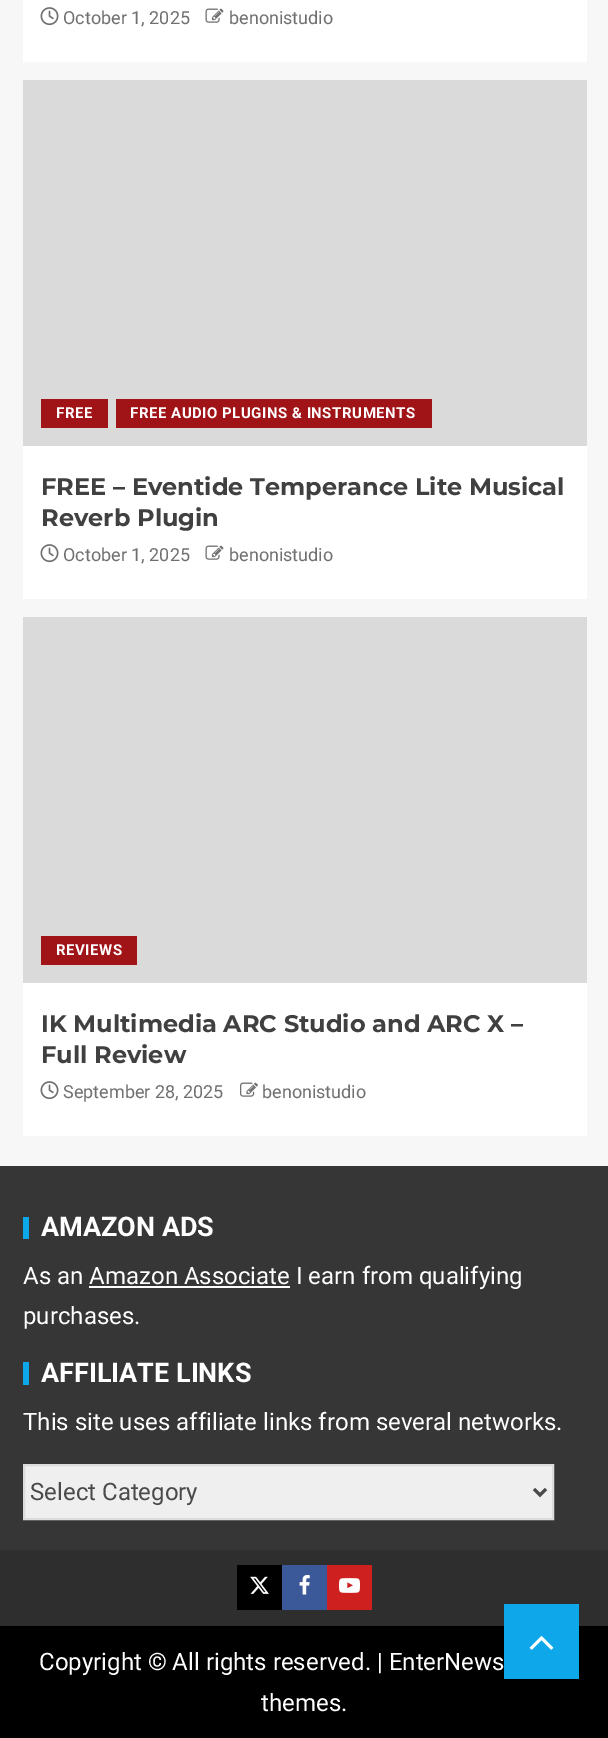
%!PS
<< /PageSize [608 1738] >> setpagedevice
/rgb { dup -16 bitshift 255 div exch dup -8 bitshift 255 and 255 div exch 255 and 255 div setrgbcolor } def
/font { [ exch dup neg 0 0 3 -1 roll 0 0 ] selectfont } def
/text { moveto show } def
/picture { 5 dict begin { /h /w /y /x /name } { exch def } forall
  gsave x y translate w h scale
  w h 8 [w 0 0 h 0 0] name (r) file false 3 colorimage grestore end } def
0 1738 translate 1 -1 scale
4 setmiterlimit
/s1 { /Roboto-Regular 18 font 16#707070 rgb } def
/s2 { /Montserrat-Bold 24 font 16#404040 rgb } def
/s3 { /Roboto-Bold 27 font 16#FFFFFF rgb } def
/s4 { /Roboto-Regular 24 font 16#FFFFFF rgb } def
/s5 { /Roboto-Regular 24 font 16#4A4A4A rgb } def
16#F7F7F7 rgb
0 0 608 1738 rectfill
16#FFFFFF rgb
23 0 564 62 rectfill
(pic1.raw) 40 7 19 19 picture
s1
(October 1, 2025) 63 24 text
(pic2.raw) 205 8 19 15 picture
(benonistudio) 229 24 text
16#DADADA rgb
23 80 564 366 rectfill
16#A01317 rgb
41 399 67 29 rectfill
/Roboto-Bold 15 font
16#FFFFFF rgb
56 418 moveto 0.5 0 (FREE) ashow
16#A01317 rgb
116 399 316 29 rectfill
16#FFFFFF rgb
130 418 moveto 0.5 0 (FREE AUDIO PLUGINS & INSTRUMENTS) ashow
23 446 564 153 rectfill
s2
(FREE – Eventide Temperance Lite Musical) 41 495 text
(Reverb Plugin) 41 526 text
(pic1.raw) 40 544 19 19 picture
s1
(October 1, 2025) 63 561 text
(pic2.raw) 205 545 19 15 picture
(benonistudio) 229 561 text
16#DADADA rgb
23 617 564 366 rectfill
16#A01317 rgb
41 936 96 29 rectfill
/Roboto-Bold 15 font
16#FFFFFF rgb
56 955 moveto 0.5 0 (REVIEWS) ashow
23 983 564 153 rectfill
s2
(IK Multimedia ARC Studio and ARC X –) 41 1032 text
(Full Review) 41 1063 text
(pic1.raw) 40 1081 19 19 picture
s1
(September 28, 2025) 63 1098 text
(pic3.raw) 240 1082 18 15 picture
(benonistudio) 262 1098 text
16#363636 rgb
0 1166 608 384 rectfill
16#0EA8EA rgb
23 1217 6 22 rectfill
s3
(AMAZON ADS) 41 1236 text
s4
(As an Amazon Associate I earn from qualifying) 23 1284 text
89 1286 201 2 rectfill
(purchases.) 23 1324 text
16#0EA8EA rgb
23 1362 6 23 rectfill
s3
(AFFILIATE LINKS) 41 1382 text
s4
(This site uses affiliate links from several networks.) 23 1430 text
16#EFEFEF rgb
24 1465 moveto 553 1465 lineto 553 1519 lineto 24 1519 lineto closepath gsave fill grestore
16#DCDCDC rgb
2 setlinewidth
stroke
16#4A4A4A rgb
3 setlinewidth
534 1489 moveto 540 1495 lineto 546 1489 lineto stroke
(Select Category) 30 1500 text
16#2E2E2E rgb
0 1550 608 76 rectfill
16#000000 rgb
237 1565 45 45 rectfill
(pic4.raw) 250 1576 19 18 picture
16#3B5999 rgb
282 1565 45 45 rectfill
(pic5.raw) 299 1575 11 20 picture
16#CD201F rgb
327 1565 45 45 rectfill
(pic6.raw) 339 1578 21 15 picture
16#000000 rgb
0 1626 608 112 rectfill
s4
(Copyright © All rights reserved. | EnterNews) 39 1670 text
(themes.) 261 1711 text
16#0EA8EA rgb
504 1604 75 75 rectfill
(pic7.raw) 529 1636 25 14 picture
showpage
